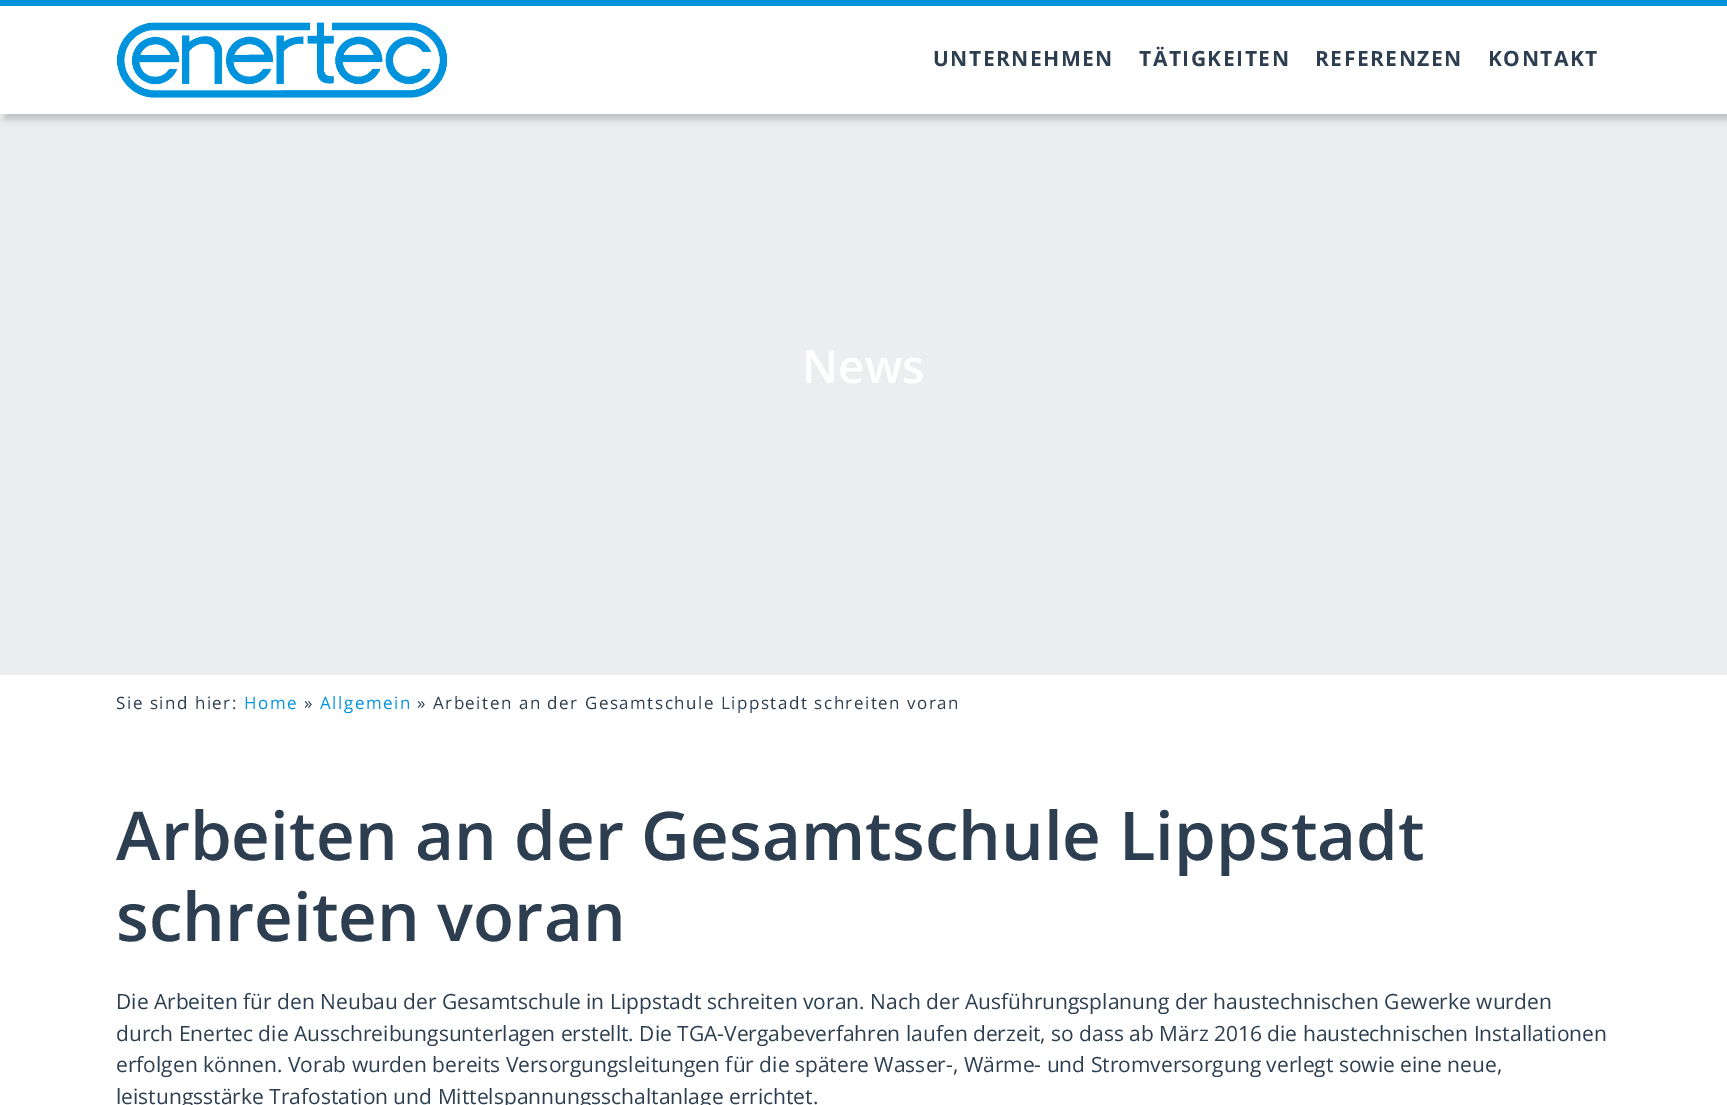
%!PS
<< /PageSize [1727 1105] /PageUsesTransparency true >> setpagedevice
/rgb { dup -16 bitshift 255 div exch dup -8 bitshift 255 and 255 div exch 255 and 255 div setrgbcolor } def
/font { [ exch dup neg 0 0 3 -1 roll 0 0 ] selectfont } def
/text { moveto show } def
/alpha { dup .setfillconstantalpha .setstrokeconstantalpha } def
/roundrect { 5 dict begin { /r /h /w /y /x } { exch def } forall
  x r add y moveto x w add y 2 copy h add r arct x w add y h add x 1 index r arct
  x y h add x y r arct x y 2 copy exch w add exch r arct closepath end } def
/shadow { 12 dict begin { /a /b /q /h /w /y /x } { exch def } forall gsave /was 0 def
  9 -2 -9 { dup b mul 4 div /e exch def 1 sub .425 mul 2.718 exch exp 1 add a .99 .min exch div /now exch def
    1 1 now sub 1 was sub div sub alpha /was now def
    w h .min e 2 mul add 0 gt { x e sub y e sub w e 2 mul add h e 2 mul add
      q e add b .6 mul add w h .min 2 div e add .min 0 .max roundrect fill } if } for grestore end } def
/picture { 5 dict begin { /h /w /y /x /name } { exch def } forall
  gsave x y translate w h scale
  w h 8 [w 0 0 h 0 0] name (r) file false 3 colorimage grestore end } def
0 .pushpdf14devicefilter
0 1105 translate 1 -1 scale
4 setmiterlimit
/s1 { /OpenSans-SemiBold 46 font 16#FFFFFF rgb } def
/s2 { /OpenSans-Regular 21 font 16#2C3E50 rgb } def
16#FFFFFF rgb
0 0 1727 1105 rectfill
16#EBEDEE rgb
0 114 1727 561 rectfill
16#000000 rgb
5 5 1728 114 0 4 0.2 shadow
16#FFFFFF rgb
0 6 1727 108 rectfill
16#0093DD rgb
0 0 1727 6 rectfill
(pic1.raw) 116 22 331 76 picture
/OpenSans-Bold 21 font
16#2C3E50 rgb
933 66 moveto 1.5 0 (UNTERNEHMEN) ashow
1139 66 moveto 1.5 0 (TÄTIGKEITEN) ashow
1315 66 moveto 1.5 0 (REFERENZEN) ashow
1488 66 moveto 1.5 0 (KONTAKT) ashow
s1
(News) 802 383 text
/OpenSans-Regular 17 font
16#2C3E50 rgb
116 709 moveto 1.5 0 (Sie sind hier:) ashow
16#0093DD rgb
244 709 moveto 1.5 0 (Home) ashow
16#2C3E50 rgb
304 709 moveto 1.5 0 (») ashow
16#0093DD rgb
320 709 moveto 1.5 0 (Allgemein) ashow
16#2C3E50 rgb
417 709 moveto 1.5 0 (» Arbeiten an der Gesamtschule Lippstadt schreiten voran) ashow
/OpenSans-SemiBold 67.25 font
116 860 moveto 0.05 0 (Arbeiten an der Gesamtschule Lippstadt) ashow
116 941 moveto 0.05 0 (schreiten voran) ashow
s2
(Die Arbeiten für den Neubau der Gesamtschule in Lippstadt schreiten voran. Nach der Ausführungsplanung der haustechnischen Gewerke wurden) 116 1009 text
(durch Enertec die Ausschreibungsunterlagen erstellt. Die TGA-Vergabeverfahren laufen derzeit, so dass ab März 2016 die haustechnischen Installationen) 116 1041 text
(erfolgen können. Vorab wurden bereits Versorgungsleitungen für die spätere Wasser-, Wärme- und Stromversorgung verlegt sowie eine neue,) 116 1072 text
(leistungsstärke Trafostation und Mittelspannungsschaltanlage errichtet.) 116 1104 text
.poppdf14devicefilter showpage
